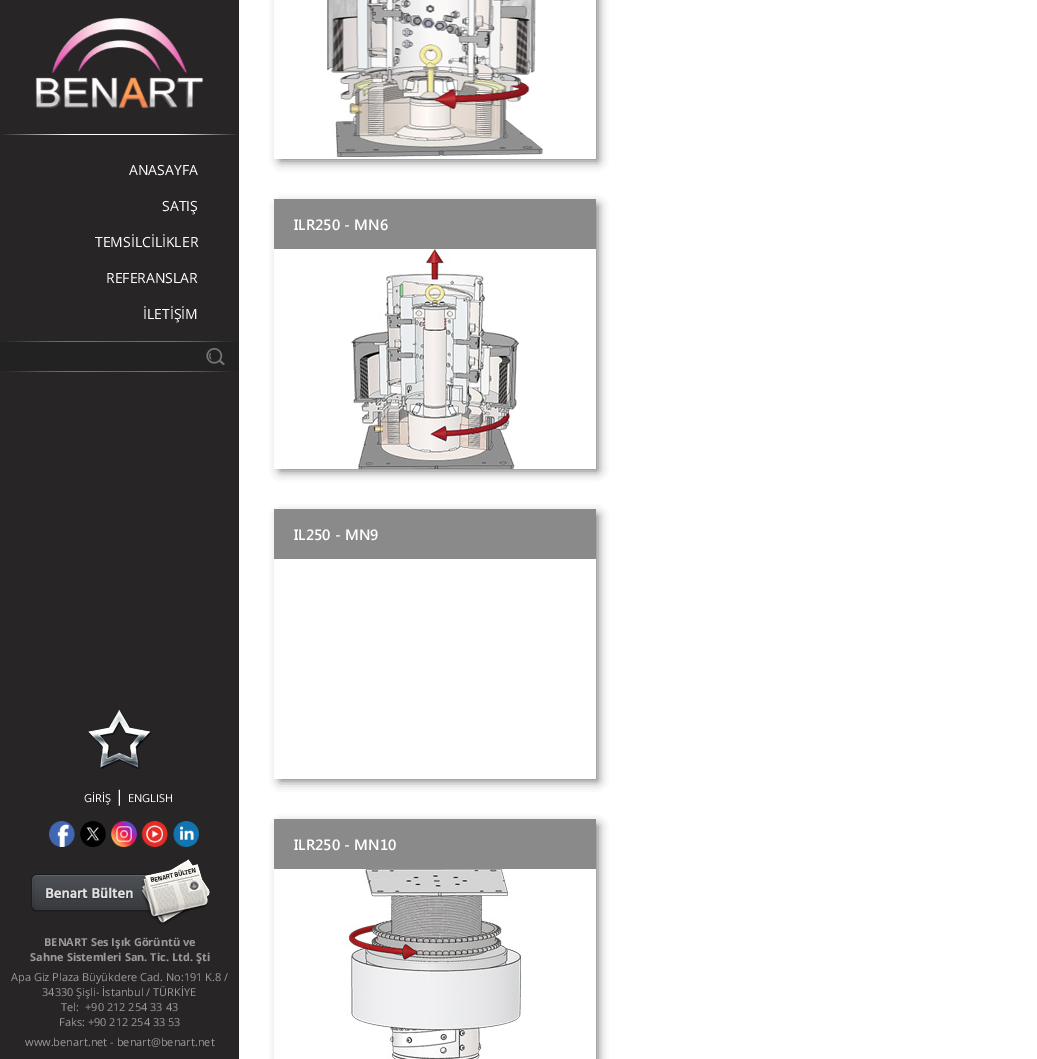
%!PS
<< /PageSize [1037 1059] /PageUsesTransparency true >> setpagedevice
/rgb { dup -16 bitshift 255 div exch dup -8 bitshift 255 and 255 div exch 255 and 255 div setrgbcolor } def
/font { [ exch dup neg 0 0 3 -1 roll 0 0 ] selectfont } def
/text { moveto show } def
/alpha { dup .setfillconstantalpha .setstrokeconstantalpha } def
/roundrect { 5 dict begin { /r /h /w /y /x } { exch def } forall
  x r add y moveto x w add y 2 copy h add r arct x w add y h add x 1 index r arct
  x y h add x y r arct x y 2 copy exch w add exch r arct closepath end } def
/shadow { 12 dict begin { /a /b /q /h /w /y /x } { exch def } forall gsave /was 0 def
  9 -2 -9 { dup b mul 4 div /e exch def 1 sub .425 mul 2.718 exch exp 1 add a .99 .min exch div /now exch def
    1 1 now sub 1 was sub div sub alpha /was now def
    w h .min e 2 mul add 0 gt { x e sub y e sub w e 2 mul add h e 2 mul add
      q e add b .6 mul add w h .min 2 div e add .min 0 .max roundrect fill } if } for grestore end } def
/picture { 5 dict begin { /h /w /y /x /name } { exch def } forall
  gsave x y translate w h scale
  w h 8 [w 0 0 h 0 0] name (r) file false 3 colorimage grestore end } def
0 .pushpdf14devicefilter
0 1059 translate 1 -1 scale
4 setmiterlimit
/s1 { /OpenSans-Regular 14 font 16#FFFFFF rgb } def
/s2 { /OpenSans-Regular 11 font 16#FFFFFF rgb } def
/s3 { /OpenSans-Regular 16 font 16#FFFFFF rgb } def
/s4 { /OpenSans-Bold 11 font 16#9A999E rgb } def
/s5 { /OpenSans-Regular 11 font 16#9A999E rgb } def
/s6 { /SegoeUI-SemiBold 15 font 16#FFFFFF rgb } def
16#FFFFFF rgb
0 0 1037 1059 rectfill
16#272525 rgb
0 0 239 1059 rectfill
(pic1.raw) 35 18 169 91 picture
gsave 0 134 moveto 239 134 lineto 239 135 lineto 0 135 lineto closepath clip newpath
<< /ShadingType 2 /ColorSpace /DeviceRGB /Coords [0 135 239 135] /Extend [true true] /Function << /FunctionType 3 /Domain [0 1] /Functions [<< /FunctionType 2 /Domain [0 1] /C0 [0.153 0.145 0.145] /C1 [1 1 1] /N 1 >> << /FunctionType 2 /Domain [0 1] /C0 [1 1 1] /C1 [1 1 1] /N 1 >> << /FunctionType 2 /Domain [0 1] /C0 [1 1 1] /C1 [0.153 0.145 0.145] /N 1 >>] /Bounds [0.29 0.74] /Encode [0 1 0 1 0 1] >> >> shfill grestore
s1
(ANASAYFA) 129 175 text
(SATIŞ) 162 211 text
(TEMSİLCİLİKLER) 95 247 text
(REFERANSLAR) 106 283 text
(İLETİŞİM) 143 319 text
(pic2.raw) 0 341 239 31 picture
(pic3.raw) 88 709 63 60 picture
s2
(GİRİŞ) 84 802 text
s3
(|) 115 802 text
s2
(ENGLISH) 128 802 text
(pic4.raw) 49 821 150 26 picture
(pic5.raw) 31 859 179 66 picture
s4
(BENART Ses Işık Görüntü ve) 44 946 text
(Sahne Sistemleri San. Tic. Ltd. Şti) 30 961 text
s5
(Apa Giz Plaza Büyükdere Cad. No:191 K.8 /) 11 981 text
(34330 Şişli- İstanbul / TÜRKİYE) 42 996 text
(Tel:) 61 1011 text
(+90 212 254 33 43) 85 1011 text
(Faks: +90 212 254 33 53) 59 1026 text
(www.benart.net - benart@benart.net) 25 1046 text
gsave
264 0 moveto 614 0 lineto 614 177 lineto 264 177 lineto closepath 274 -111 moveto 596 -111 lineto 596 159 lineto 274 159 lineto closepath eoclip newpath
16#000000 rgb
280 -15 318 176 0 5 0.55 shadow
grestore
(pic6.raw) 327 0 216 157 picture
gsave
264 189 moveto 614 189 lineto 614 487 lineto 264 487 lineto closepath 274 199 moveto 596 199 lineto 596 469 lineto 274 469 lineto closepath eoclip newpath
16#000000 rgb
280 205 318 266 0 5 0.55 shadow
grestore
(pic7.raw) 351 249 168 220 picture
16#8A8A8A rgb
274 199 322 50 rectfill
s6
(ILR250 - MN6) 294 230 text
gsave
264 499 moveto 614 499 lineto 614 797 lineto 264 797 lineto closepath 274 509 moveto 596 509 lineto 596 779 lineto 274 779 lineto closepath eoclip newpath
16#000000 rgb
280 515 318 266 0 5 0.55 shadow
grestore
16#8A8A8A rgb
274 509 322 50 rectfill
s6
(IL250 - MN9) 294 540 text
gsave
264 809 moveto 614 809 lineto 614 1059 lineto 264 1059 lineto closepath 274 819 moveto 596 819 lineto 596 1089 lineto 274 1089 lineto closepath eoclip newpath
16#000000 rgb
280 825 318 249 0 5 0.55 shadow
grestore
(pic8.raw) 346 869 176 190 picture
16#8A8A8A rgb
274 819 322 50 rectfill
s6
(ILR250 - MN10) 294 850 text
.poppdf14devicefilter showpage
